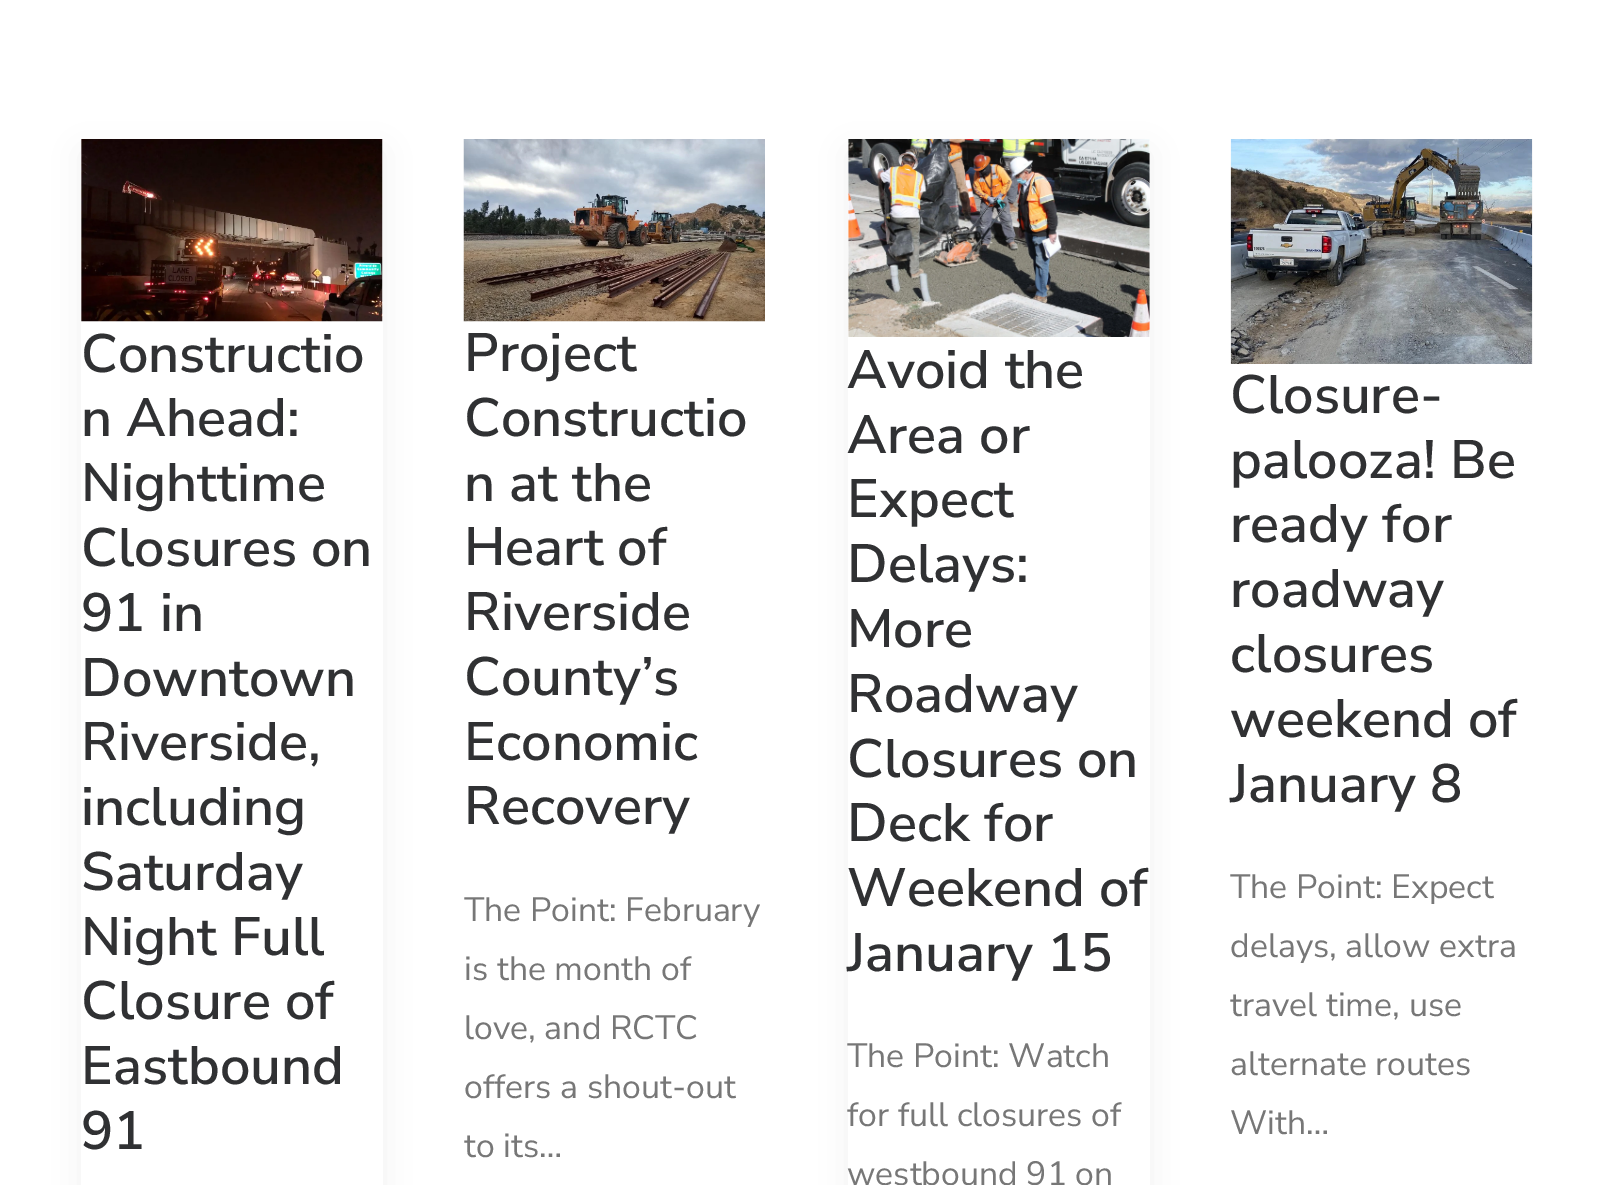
%!PS
<< /PageSize [1613 1185] /PageUsesTransparency true >> setpagedevice
/rgb { dup -16 bitshift 255 div exch dup -8 bitshift 255 and 255 div exch 255 and 255 div setrgbcolor } def
/font { [ exch dup neg 0 0 3 -1 roll 0 0 ] selectfont } def
/text { moveto show } def
/alpha { dup .setfillconstantalpha .setstrokeconstantalpha } def
/roundrect { 5 dict begin { /r /h /w /y /x } { exch def } forall
  x r add y moveto x w add y 2 copy h add r arct x w add y h add x 1 index r arct
  x y h add x y r arct x y 2 copy exch w add exch r arct closepath end } def
/shadow { 12 dict begin { /a /b /q /h /w /y /x } { exch def } forall gsave /was 0 def
  9 -2 -9 { dup b mul 4 div /e exch def 1 sub .425 mul 2.718 exch exp 1 add a .99 .min exch div /now exch def
    1 1 now sub 1 was sub div sub alpha /was now def
    w h .min e 2 mul add 0 gt { x e sub y e sub w e 2 mul add h e 2 mul add
      q e add b .6 mul add w h .min 2 div e add .min 0 .max roundrect fill } if } for grestore end } def
/picture { 5 dict begin { /h /w /y /x /name } { exch def } forall
  gsave x y translate w h scale
  w h 8 [w 0 0 h 0 0] name (r) file false 3 colorimage grestore end } def
0 .pushpdf14devicefilter
0 1185 translate 1 -1 scale
4 setmiterlimit
/s1 { /NunitoSans-SemiBold 54 font 16#303133 rgb } def
/s2 { /NunitoSans-Regular 33.75 font 16#777777 rgb } def
16#FFFFFF rgb
0 0 1613 1185 rectfill
16#000000 rgb
81 151 302 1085 0 17 0.05 shadow
16#FFFFFF rgb
81 140 302 1045 rectfill
(pic1.raw) 81 139 302 183 picture
s1
(Constructio) 81 372 text
(n Ahead:) 81 436 text
(Nighttime) 81 501 text
(Closures on) 81 566 text
(91 in) 81 631 text
(Downtown) 81 696 text
(Riverside,) 81 760 text
(including) 81 825 text
(Saturday) 81 890 text
(Night Full) 81 955 text
(Closure of) 81 1019 text
(Eastbound) 81 1084 text
(91) 81 1149 text
(pic2.raw) 463 139 302 183 picture
(Project) 464 371 text
(Constructio) 464 436 text
(n at the) 464 501 text
(Heart of) 464 565 text
(Riverside) 464 630 text
(County’s) 464 695 text
(Economic) 464 760 text
(Recovery) 464 824 text
s2
(The Point: February) 464 921 text
(is the month of) 464 980 text
(love, and RCTC) 464 1039 text
(offers a shout-out) 464 1098 text
(to its…) 464 1157 text
16#000000 rgb
848 151 302 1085 0 17 0.05 shadow
16#FFFFFF rgb
848 140 302 1045 rectfill
(pic3.raw) 848 139 302 198 picture
s1
(Avoid the) 847 388 text
(Area or) 847 453 text
(Expect) 847 517 text
(Delays:) 847 582 text
(More) 847 647 text
(Roadway) 847 712 text
(Closures on) 847 777 text
(Deck for) 847 841 text
(Weekend of) 847 906 text
(January 15) 847 971 text
s2
(The Point: Watch) 847 1067 text
(for full closures of) 847 1126 text
(westbound 91 on) 847 1185 text
(pic4.raw) 1230 139 303 225 picture
s1
(Closure-) 1230 413 text
(palooza! Be) 1230 478 text
(ready for) 1230 542 text
(roadway) 1230 607 text
(closures) 1230 672 text
(weekend of) 1230 737 text
(January 8) 1230 802 text
s2
(The Point: Expect) 1230 898 text
(delays, allow extra) 1230 957 text
(travel time, use) 1230 1016 text
(alternate routes) 1230 1075 text
(With…) 1230 1134 text
.poppdf14devicefilter showpage
